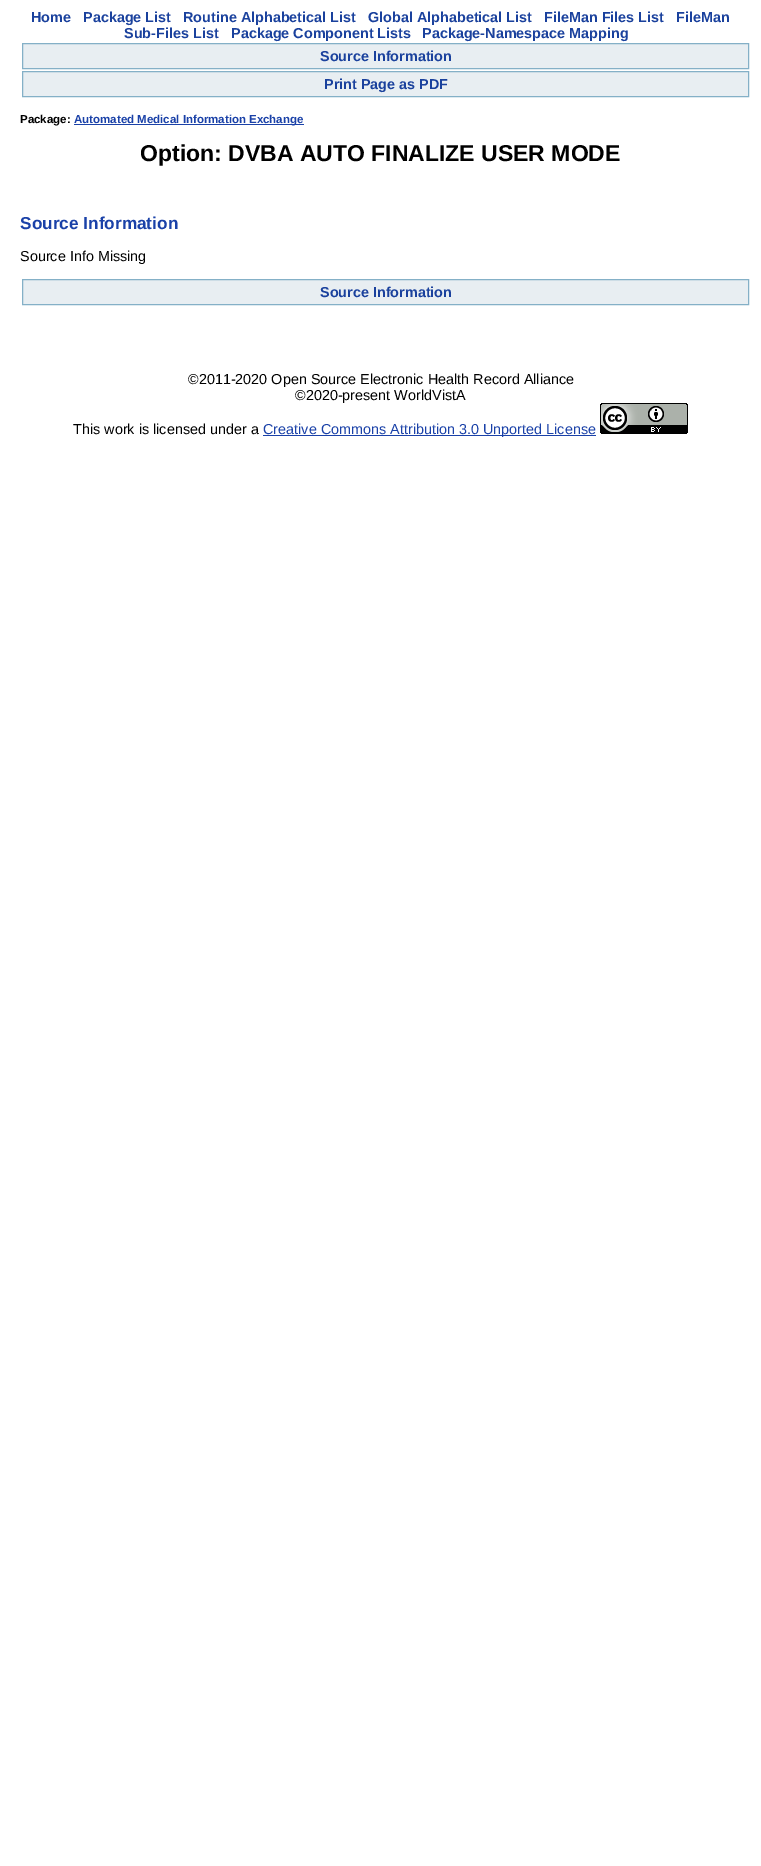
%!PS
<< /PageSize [761 1866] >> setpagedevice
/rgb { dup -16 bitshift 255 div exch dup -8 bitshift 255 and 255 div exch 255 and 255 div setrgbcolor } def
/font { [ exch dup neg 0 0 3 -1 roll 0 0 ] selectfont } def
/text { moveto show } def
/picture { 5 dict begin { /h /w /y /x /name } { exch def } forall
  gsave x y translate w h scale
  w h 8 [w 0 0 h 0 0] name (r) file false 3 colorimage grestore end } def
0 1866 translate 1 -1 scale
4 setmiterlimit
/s1 { /LiberationSans-Bold 14.4 font 16#1A419D rgb } def
/s2 { /LiberationSans-Bold 11.5 font 16#000000 rgb } def
/s3 { /LiberationSans-Bold 11.5 font 16#1A41A8 rgb } def
/s4 { /LiberationSans-Bold 23 font 16#000000 rgb } def
/s5 { /LiberationSans-Bold 17.25 font 16#1A41A8 rgb } def
/s6 { /LiberationSans-Regular 14.4 font 16#000000 rgb } def
/s7 { /LiberationSans-Regular 14.4 font 16#1A41A8 rgb } def
16#FFFFFF rgb
0 0 761 1866 rectfill
s1
(Home) 31 22 text
(Package List) 83 22 text
(Routine Alphabetical List) 183 22 text
(Global Alphabetical List) 368 22 text
(FileMan Files List) 544 22 text
(FileMan) 676 22 text
(Sub-Files List) 124 38 text
(Package Component Lists) 231 38 text
(Package-Namespace Mapping) 422 38 text
16#E8EEF2 rgb
22.5 43.5 moveto 748.5 43.5 lineto 748.5 68.5 lineto 22.5 68.5 lineto closepath gsave fill grestore
16#84B0C7 rgb
stroke
s1
(Source Information) 320 61 text
16#E8EEF2 rgb
22.5 71.5 moveto 748.5 71.5 lineto 748.5 96.5 lineto 22.5 96.5 lineto closepath gsave fill grestore
16#84B0C7 rgb
stroke
s1
(Print Page as PDF) 324 89 text
s2
(Package:) 20 123 text
16#1A41A8 rgb
74 124 230 1 rectfill
(Automated Medical Information Exchange) 74 123 text
s4
(Option: DVBA AUTO FINALIZE USER MODE) 140 161 text
s5
(Source Information) 20 229 text
s6
(Source Info Missing) 20 261 text
16#E8EEF2 rgb
22.5 279.5 moveto 748.5 279.5 lineto 748.5 304.5 lineto 22.5 304.5 lineto closepath gsave fill grestore
16#84B0C7 rgb
stroke
s1
(Source Information) 320 297 text
s6
(©2011-2020 Open Source Electronic Health Record Alliance) 188 384 text
(©2020-present WorldVistA) 295 400 text
(This work is licensed under a) 73 434 text
16#1A41A8 rgb
263 435 333 1 rectfill
(Creative Commons Attribution 3.0 Unported License) 263 434 text
(pic1.raw) 600 403 88 31 picture
showpage
